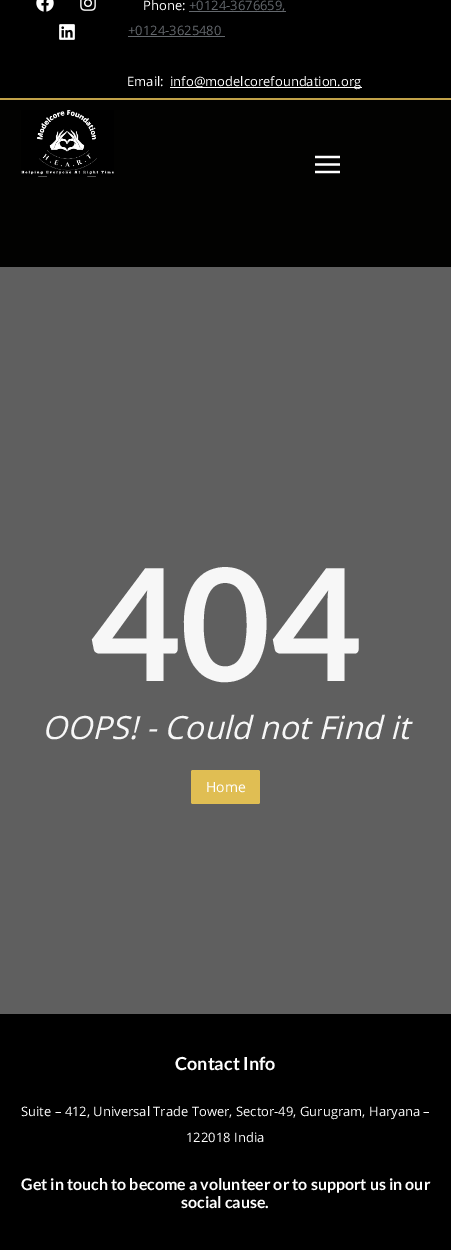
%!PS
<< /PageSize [451 1250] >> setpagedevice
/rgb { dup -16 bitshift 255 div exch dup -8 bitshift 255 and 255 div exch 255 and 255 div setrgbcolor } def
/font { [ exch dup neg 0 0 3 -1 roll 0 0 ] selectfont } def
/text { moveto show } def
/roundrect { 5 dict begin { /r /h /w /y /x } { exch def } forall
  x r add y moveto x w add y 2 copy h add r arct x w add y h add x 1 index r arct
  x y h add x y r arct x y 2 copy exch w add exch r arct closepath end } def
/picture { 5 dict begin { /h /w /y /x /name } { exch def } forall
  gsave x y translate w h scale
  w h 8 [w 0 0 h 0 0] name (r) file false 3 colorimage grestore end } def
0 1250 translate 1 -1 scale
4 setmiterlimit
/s1 { /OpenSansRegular-Regular 13 font 16#FFFFFF rgb } def
/s2 { /OpenSansRegular-Regular 13 font 16#64686D rgb } def
/s3 { /Lato-Bold 156 font 16#F7F7F7 rgb } def
/s4 { /OpenSansRegular-Italic 32 font 16#F7F7F7 rgb } def
/s5 { /OpenSansRegular-Regular 14 font 16#FFFFFF rgb } def
/s6 { /Lato-Bold 18 font 16#FFFFFF rgb } def
/s7 { /Lato-Bold 16 font 16#FFFFFF rgb } def
16#5F5F5F rgb
0 0 451 1250 rectfill
16#000000 rgb
0 0 451 98 rectfill
16#C1A249 rgb
0 98 451 2 rectfill
(pic1.raw) 36 0 18 12 picture
(pic2.raw) 80 0 16 11 picture
(pic3.raw) 59 24 16 16 picture
s1
(Phone:) 143 10 text
16#64686D rgb
189 11 97 1 rectfill
(+0124-3676659,) 189 10 text
(+0124-3625480) 128 35 text
128 36 97 1 rectfill
s1
(Email:) 127 86 text
170 87 192 1 rectfill
(info@modelcorefoundation.org) 170 86 text
16#020201 rgb
0 100 451 167 rectfill
(pic4.raw) 21 110 93 67 picture
(pic5.raw) 315 155 25 19 picture
s3
(404) 90 681 text
s4
(OOPS! - Could not Find it) 42 739 text
16#E0BE53 rgb
191 770 69 34 2 roundrect fill
s5
(Home) 206 792 text
16#000000 rgb
0 1014 451 236 rectfill
s6
(Contact Info) 175 1070 text
s1
(Suite – 412, Universal Trade Tower, Sector-49, Gurugram, Haryana –) 21 1116 text
(122018 India) 186 1142 text
s7
(Get in touch to become a volunteer or to support us in our) 21 1190 text
(social cause.) 181 1208 text
showpage
